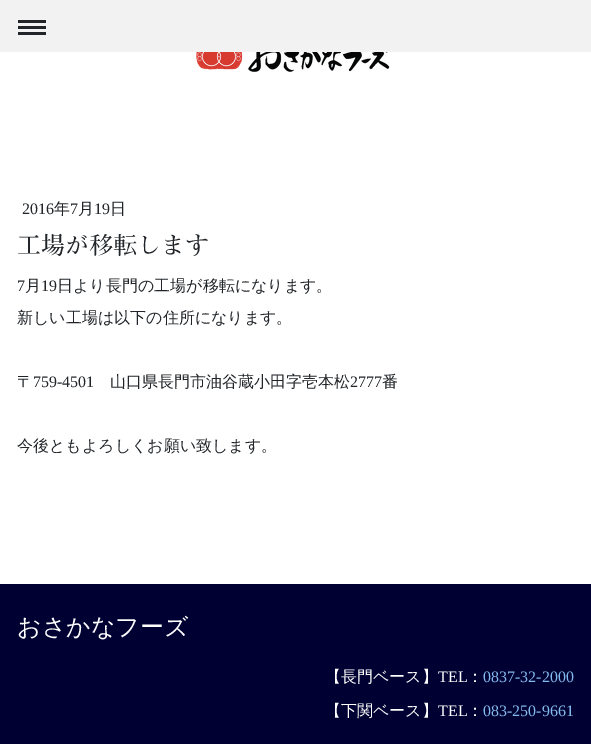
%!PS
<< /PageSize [591 744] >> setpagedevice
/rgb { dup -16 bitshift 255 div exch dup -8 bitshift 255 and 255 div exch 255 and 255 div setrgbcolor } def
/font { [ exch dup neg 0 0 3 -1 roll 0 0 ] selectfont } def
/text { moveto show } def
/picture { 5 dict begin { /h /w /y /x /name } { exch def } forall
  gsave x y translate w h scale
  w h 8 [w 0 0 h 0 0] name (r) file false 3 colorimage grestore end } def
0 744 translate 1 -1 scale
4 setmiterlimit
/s1 { /LiberationSerif-Regular 16 font 16#212529 rgb } def
/s2 { /WenQuanYiZenHei-Medium 16 font 16#212529 rgb } def
/s3 { /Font-Regular 24 font 16#212529 rgb } def
/s4 { /WenQuanYiZenHei-Medium 24 font 16#FFFFFF rgb } def
/s5 { /WenQuanYiZenHei-Medium 16 font 16#FFFFFF rgb } def
/s6 { /LiberationSerif-Regular 16 font 16#FFFFFF rgb } def
/s7 { /LiberationSerif-Regular 16 font 16#83B9EC rgb } def
16#000132 rgb
0 0 591 744 rectfill
16#F2F2F2 rgb
0 0 591 52 rectfill
16#212529 rgb
18 26 28 3 rectfill
18 20 28 3 rectfill
18 32 28 3 rectfill
16#FFFFFF rgb
0 52 591 532 rectfill
(pic1.raw) 196 52 194 20 picture
s1
(2016) 22 214 text
s2
(年) 54 214 text
s1
(7) 70 214 text
s2
(月) 78 214 text
s1
(19) 94 214 text
s2
(日) 110 214 text
s3
(工場が移転します) 17 254 text
s1
(7) 17 291 text
s2
(月) 25 291 text
s1
(19) 41 291 text
s2
(日より長門の工場が移転になります。) 57 291 text
(新しい工場は以下の住所になります。) 17 323 text
(〒) 17 387 text
s1
(759-4501) 33 387 text
s2
(山口県長門市油谷蔵小田字壱本松) 110 387 text
s1
(2777) 350 387 text
s2
(番) 382 387 text
(今後ともよろしくお願い致します。) 17 451 text
s4
(おさかなフーズ) 17 635 text
s5
(【長門ベース】) 325 682 text
s6
(TEL) 438 682 text
s5
(：) 467 682 text
s7
(0837-32-2000) 483 682 text
s5
(【下関ベース】) 325 716 text
s6
(TEL) 438 716 text
s5
(：) 467 716 text
s7
(083-250-9661) 483 716 text
showpage
